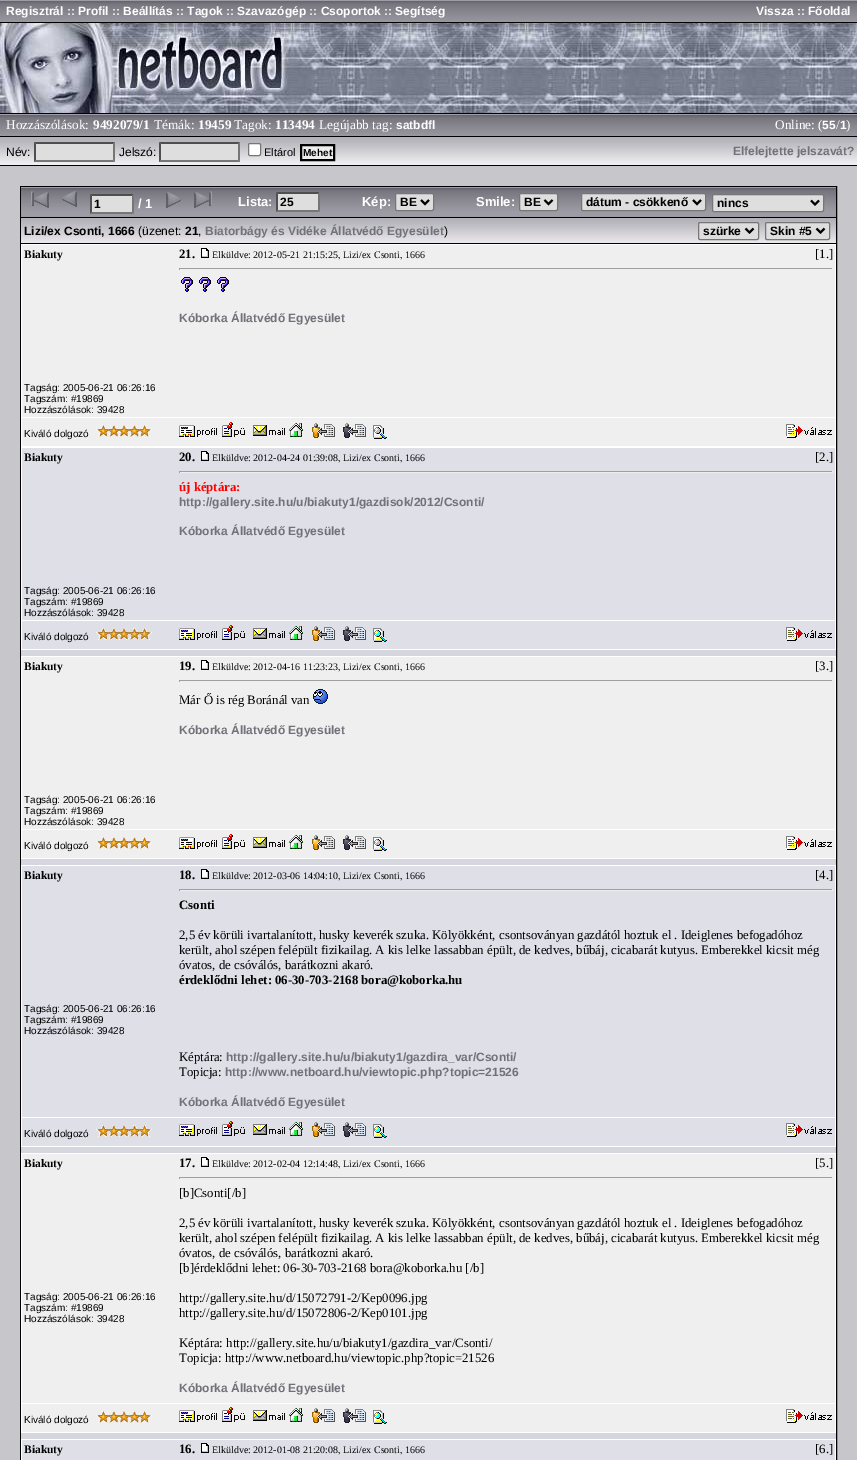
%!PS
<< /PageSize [857 1460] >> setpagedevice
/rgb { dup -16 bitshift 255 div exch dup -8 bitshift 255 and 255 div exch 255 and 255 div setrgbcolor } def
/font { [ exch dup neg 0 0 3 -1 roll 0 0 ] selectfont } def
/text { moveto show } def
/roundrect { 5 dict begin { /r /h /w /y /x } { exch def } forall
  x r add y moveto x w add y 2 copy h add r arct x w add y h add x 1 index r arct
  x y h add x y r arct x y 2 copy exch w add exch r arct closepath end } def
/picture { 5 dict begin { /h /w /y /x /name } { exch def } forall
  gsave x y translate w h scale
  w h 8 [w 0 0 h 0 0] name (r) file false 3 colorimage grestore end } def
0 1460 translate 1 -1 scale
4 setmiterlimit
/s1 { /LiberationSans-Bold 12 font 16#FFFFFF rgb } def
/s2 { /LiberationSerif-Regular 13.25 font 16#FFFFFF rgb } def
/s3 { /LiberationSerif-Bold 13.25 font 16#FFFFFF rgb } def
/s4 { /LiberationSans-Regular 12 font 16#000000 rgb } def
/s5 { /LiberationSans-Regular 11 font 16#000000 rgb } def
/s6 { /LiberationSans-Bold 10 font 16#000000 rgb } def
/s7 { /LiberationSans-Bold 12 font 16#717279 rgb } def
/s8 { /LiberationSans-Bold 12 font 16#000000 rgb } def
/s9 { /LiberationSans-Bold 13 font 16#FFFFFF rgb } def
/s10 { /LiberationSerif-Bold 11.5 font 16#000000 rgb } def
/s11 { /LiberationSans-Regular 10 font 16#000000 rgb } def
/s12 { /LiberationSerif-Bold 12.8 font 16#000000 rgb } def
/s13 { /LiberationSerif-Regular 10 font 16#000000 rgb } def
/s14 { /LiberationSerif-Regular 12.8 font 16#000000 rgb } def
/s15 { /LiberationSerif-Bold 12.8 font 16#FF0000 rgb } def
16#C7C6CA rgb
0 0 857 1460 rectfill
(pic1.raw) 0 0 857 22 picture
s1
(Regisztrál :: Profil :: Beállítás :: Tagok :: Szavazógép :: Csoportok :: Segítség) 6 15 text
(Vissza :: Főoldal) 756 15 text
(pic2.raw) 289 23 568 90 picture
16#000000 rgb
0 22 857 1 rectfill
0 113 857 1 rectfill
(pic3.raw) 0 23 289 90 picture
(pic1.raw) 0 114 857 22 picture
s2
(Hozzászólások:) 6 129 text
s3
(9492079/1) 93 129 text
s2
(Témák:) 154 129 text
s3
(19459) 198 129 text
s2
(Tagok:) 234 129 text
s3
(113494) 275 129 text
s2
(Legújabb tag:) 319 129 text
s1
(satbdfl) 396 129 text
s2
(Online: \() 775 129 text
s1
(55) 822 129 text
s2
(/) 836 129 text
s1
(1) 840 129 text
s2
(\)) 846 129 text
(pic4.raw) 0 137 857 28 picture
16#000000 rgb
0 136 857 1 rectfill
0 165 857 1 rectfill
s4
(Név:) 6 156 text
16#DEDEDE rgb
34 142 81 20 rectfill
16#4F4F4F rgb
34 142 moveto 115 142 lineto 113 144 lineto 36 144 lineto closepath fill
16#767676 rgb
115 142 moveto 115 162 lineto 113 160 lineto 113 144 lineto closepath fill
115 162 moveto 34 162 lineto 36 160 lineto 113 160 lineto closepath fill
16#4F4F4F rgb
34 162 moveto 34 142 lineto 36 144 lineto 36 160 lineto closepath fill
s4
(Jelszó:) 119 156 text
16#DEDEDE rgb
159 142 81 20 rectfill
16#4F4F4F rgb
159 142 moveto 240 142 lineto 238 144 lineto 161 144 lineto closepath fill
16#767676 rgb
240 142 moveto 240 162 lineto 238 160 lineto 238 144 lineto closepath fill
240 162 moveto 159 162 lineto 161 160 lineto 238 160 lineto closepath fill
16#4F4F4F rgb
159 162 moveto 159 142 lineto 161 144 lineto 161 160 lineto closepath fill
16#FFFFFF rgb
248.5 143.5 12 12 1.5 roundrect gsave fill grestore
16#767676 rgb
stroke
s5
(Eltárol) 264 156 text
16#EEEEEE rgb
301 145 moveto 334 145 lineto 334 160 lineto 301 160 lineto closepath gsave fill grestore
16#000000 rgb
2 setlinewidth
stroke
s6
(Mehet) 303 156 text
s7
(Elfelejtette jelszavát?) 733 155 text
16#000000 rgb
1 setlinewidth
20.5 186.5 816 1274 rectstroke
(pic5.raw) 21 187 815 30 picture
(pic6.raw) 31 191 18 17 picture
(pic7.raw) 61 191 16 16 picture
16#DEDEDE rgb
90 194 44 20 rectfill
16#4F4F4F rgb
90 194 moveto 134 194 lineto 132 196 lineto 92 196 lineto closepath fill
16#767676 rgb
134 194 moveto 134 214 lineto 132 212 lineto 132 196 lineto closepath fill
134 214 moveto 90 214 lineto 92 212 lineto 132 212 lineto closepath fill
16#4F4F4F rgb
90 214 moveto 90 194 lineto 92 196 lineto 92 212 lineto closepath fill
s8
(1) 94 208 text
s9
(/ 1) 138 208 text
(pic8.raw) 166 192 16 16 picture
(pic9.raw) 194 191 18 17 picture
(Lista:) 238 206 text
16#DEDEDE rgb
276 192 44 20 rectfill
16#4F4F4F rgb
276 192 moveto 320 192 lineto 318 194 lineto 278 194 lineto closepath fill
16#767676 rgb
320 192 moveto 320 212 lineto 318 210 lineto 318 194 lineto closepath fill
320 212 moveto 276 212 lineto 278 210 lineto 318 210 lineto closepath fill
16#4F4F4F rgb
276 212 moveto 276 192 lineto 278 194 lineto 278 210 lineto closepath fill
s8
(25) 280 206 text
s9
(Kép:) 362 206 text
16#DEDEDE rgb
395.5 193.5 38 17 1.5 roundrect gsave fill grestore
16#767676 rgb
stroke
16#000000 rgb
2 setlinewidth
421 200 moveto 425 204 lineto 429 200 lineto stroke
s8
(BE) 400 206 text
s9
(Smile:) 476 206 text
16#DEDEDE rgb
519.5 193.5 38 17 1.5 roundrect gsave fill grestore
16#767676 rgb
1 setlinewidth
stroke
16#000000 rgb
2 setlinewidth
544.5 200 moveto 548.5 204 lineto 552.5 200 lineto stroke
s8
(BE) 524 206 text
16#DEDEDE rgb
581.5 193.5 124 17 1.5 roundrect gsave fill grestore
16#767676 rgb
1 setlinewidth
stroke
16#000000 rgb
2 setlinewidth
693 200 moveto 697 204 lineto 701 200 lineto stroke
(dátum - csökkenő) 586 206 text
16#DEDEDE rgb
712.5 194.5 111 17 1.5 roundrect gsave fill grestore
16#767676 rgb
1 setlinewidth
stroke
16#000000 rgb
2 setlinewidth
811 200.5 moveto 815 204.5 lineto 819 200.5 lineto stroke
(nincs) 717 207 text
(pic10.raw) 21 218 815 25 picture
21 217 815 1 rectfill
21 243 815 1 rectfill
(Lizi/ex Csonti, 1666) 24 235 text
s4
(\(üzenet:) 138 235 text
s8
(21) 185 235 text
s4
(,) 198 235 text
s7
(Biatorbágy és Vidéke Állatvédő Egyesület) 205 235 text
s4
(\)) 444 235 text
16#DEDEDE rgb
698.5 222.5 60 17 1.5 roundrect gsave fill grestore
16#767676 rgb
1 setlinewidth
stroke
16#000000 rgb
2 setlinewidth
745.5 228.5 moveto 749.5 232.5 lineto 753.5 228.5 lineto stroke
s8
(szürke) 703 235 text
16#DEDEDE rgb
765.5 222.5 64 17 1.5 roundrect gsave fill grestore
16#767676 rgb
1 setlinewidth
stroke
16#000000 rgb
2 setlinewidth
816.5 228.5 moveto 820.5 232.5 lineto 824.5 228.5 lineto stroke
(Skin #5) 770 235 text
16#FFFFFF rgb
21 244 815 406 rectfill
16#EFEFEF rgb
22 245 813 172 rectfill
s10
(Biakuty) 24 258 text
s11
(Tagság: 2005-06-21 06:26:16) 24 391 text
(Tagszám: #19869) 24 402 text
(Hozzászólások: 39428) 24 413 text
s12
(21.) 179 258 text
(pic11.raw) 201 248 8 10 picture
s13
(Elküldve: 2012-05-21 21:15:25, Lizi/ex Csonti, 1666) 212 258 text
s14
([1.]) 815 258 text
16#9F9F9F rgb
179 268 654 1 rectfill
16#EEEEEE rgb
832 268 1 2 rectfill
16#9F9F9F rgb
179 268 1 2 rectfill
(pic12.raw) 181 277 12 15 picture
(pic12.raw) 199 277 12 15 picture
(pic12.raw) 217 277 12 15 picture
s7
(Kóborka Állatvédő Egyesület) 179 322 text
16#EFEFEF rgb
22 418 813 28 rectfill
s11
(Kiváló dolgozó) 24 437 text
(pic13.raw) 96 425 56 12 picture
(pic14.raw) 179 425 38 12 picture
(pic15.raw) 222 422 23 15 picture
(pic16.raw) 253 425 32 11 picture
(pic17.raw) 289 423 14 14 picture
(pic18.raw) 312 423 23 15 picture
(pic19.raw) 343 423 23 15 picture
(pic20.raw) 373 425 14 14 picture
(pic21.raw) 786 424 46 14 picture
16#DEDFE7 rgb
22 448 813 172 rectfill
s10
(Biakuty) 24 461 text
s11
(Tagság: 2005-06-21 06:26:16) 24 594 text
(Tagszám: #19869) 24 605 text
(Hozzászólások: 39428) 24 616 text
s12
(20.) 179 461 text
(pic22.raw) 201 451 8 10 picture
s13
(Elküldve: 2012-04-24 01:39:08, Lizi/ex Csonti, 1666) 212 461 text
s14
([2.]) 815 461 text
16#9F9F9F rgb
179 471 654 1 rectfill
16#EEEEEE rgb
832 471 1 2 rectfill
179 472 654 1 rectfill
16#9F9F9F rgb
179 471 1 2 rectfill
s15
(új képtára:) 179 491 text
s7
(http://gallery.site.hu/u/biakuty1/gazdisok/2012/Csonti/) 179 506 text
(Kóborka Állatvédő Egyesület) 179 535 text
16#DEDFE7 rgb
22 621 813 28 rectfill
s11
(Kiváló dolgozó) 24 640 text
(pic23.raw) 96 628 56 12 picture
(pic24.raw) 179 628 38 12 picture
(pic25.raw) 222 625 23 15 picture
(pic26.raw) 253 628 32 11 picture
(pic27.raw) 289 626 14 14 picture
(pic28.raw) 312 626 23 15 picture
(pic29.raw) 343 626 23 15 picture
(pic30.raw) 373 628 14 14 picture
(pic31.raw) 786 627 46 14 picture
16#D6D7DE rgb
21 650 815 6 rectfill
16#FFFFFF rgb
21 656 815 203 rectfill
16#EFEFEF rgb
22 657 813 172 rectfill
s10
(Biakuty) 24 670 text
s11
(Tagság: 2005-06-21 06:26:16) 24 803 text
(Tagszám: #19869) 24 814 text
(Hozzászólások: 39428) 24 825 text
s12
(19.) 179 670 text
(pic11.raw) 201 660 8 10 picture
s13
(Elküldve: 2012-04-16 11:23:23, Lizi/ex Csonti, 1666) 212 670 text
s14
([3.]) 815 670 text
16#9F9F9F rgb
179 680 654 1 rectfill
16#EEEEEE rgb
832 680 1 2 rectfill
16#9F9F9F rgb
179 680 1 2 rectfill
s14
(Már Ő is rég Boránál van) 179 704 text
(pic32.raw) 313 689 15 15 picture
s7
(Kóborka Állatvédő Egyesület) 179 734 text
16#EFEFEF rgb
22 830 813 28 rectfill
s11
(Kiváló dolgozó) 24 849 text
(pic13.raw) 96 837 56 12 picture
(pic14.raw) 179 837 38 12 picture
(pic15.raw) 222 834 23 15 picture
(pic16.raw) 253 837 32 11 picture
(pic17.raw) 289 835 14 14 picture
(pic18.raw) 312 835 23 15 picture
(pic19.raw) 343 835 23 15 picture
(pic20.raw) 373 837 14 14 picture
(pic21.raw) 786 836 46 14 picture
16#D6D7DE rgb
21 859 815 6 rectfill
16#FFFFFF rgb
21 865 815 282 rectfill
16#DEDFE7 rgb
22 866 813 251 rectfill
s10
(Biakuty) 24 879 text
s11
(Tagság: 2005-06-21 06:26:16) 24 1012 text
(Tagszám: #19869) 24 1023 text
(Hozzászólások: 39428) 24 1034 text
s12
(18.) 179 879 text
(pic22.raw) 201 869 8 10 picture
s13
(Elküldve: 2012-03-06 14:04:10, Lizi/ex Csonti, 1666) 212 879 text
s14
([4.]) 815 879 text
16#9F9F9F rgb
179 889 654 1 rectfill
16#EEEEEE rgb
832 889 1 2 rectfill
179 890 654 1 rectfill
16#9F9F9F rgb
179 889 1 2 rectfill
s12
(Csonti) 179 909 text
s14
(2,5 év körüli ivartalanított, husky keverék szuka. Kölyökként, csontsoványan gazdától hoztuk el . Ideiglenes befogadóhoz) 179 939 text
(került, ahol szépen felépült fizikailag. A kis lelke lassabban épült, de kedves, bűbáj, cicabarát kutyus. Emberekkel kicsit még) 179 954 text
(óvatos, de csóválós, barátkozni akaró.) 179 969 text
s12
(érdeklődni lehet: 06-30-703-2168 bora@koborka.hu) 179 984 text
s14
(Képtára:) 179 1061 text
s7
(http://gallery.site.hu/u/biakuty1/gazdira_var/Csonti/) 226 1061 text
s14
(Topicja:) 179 1076 text
s7
(http://www.netboard.hu/viewtopic.php?topic=21526) 225 1076 text
(Kóborka Állatvédő Egyesület) 179 1106 text
16#DEDFE7 rgb
22 1118 813 28 rectfill
s11
(Kiváló dolgozó) 24 1137 text
(pic23.raw) 96 1125 56 12 picture
(pic24.raw) 179 1124 38 12 picture
(pic25.raw) 222 1121 23 15 picture
(pic26.raw) 253 1124 32 11 picture
(pic27.raw) 289 1122 14 14 picture
(pic28.raw) 312 1122 23 15 picture
(pic29.raw) 343 1122 23 15 picture
(pic30.raw) 373 1124 14 14 picture
(pic31.raw) 786 1123 46 14 picture
16#D6D7DE rgb
21 1147 815 6 rectfill
16#FFFFFF rgb
21 1153 815 280 rectfill
16#EFEFEF rgb
22 1154 813 249 rectfill
s10
(Biakuty) 24 1167 text
s11
(Tagság: 2005-06-21 06:26:16) 24 1300 text
(Tagszám: #19869) 24 1311 text
(Hozzászólások: 39428) 24 1322 text
s12
(17.) 179 1167 text
(pic11.raw) 201 1157 8 10 picture
s13
(Elküldve: 2012-02-04 12:14:48, Lizi/ex Csonti, 1666) 212 1167 text
s14
([5.]) 815 1167 text
16#9F9F9F rgb
179 1177 654 1 rectfill
16#EEEEEE rgb
832 1177 1 2 rectfill
16#9F9F9F rgb
179 1177 1 2 rectfill
s14
([b]Csonti[/b]) 179 1197 text
(2,5 év körüli ivartalanított, husky keverék szuka. Kölyökként, csontsoványan gazdától hoztuk el . Ideiglenes befogadóhoz) 179 1227 text
(került, ahol szépen felépült fizikailag. A kis lelke lassabban épült, de kedves, bűbáj, cicabarát kutyus. Emberekkel kicsit még) 179 1242 text
(óvatos, de csóválós, barátkozni akaró.) 179 1257 text
([b]érdeklődni lehet: 06-30-703-2168 bora@koborka.hu [/b]) 179 1272 text
(http://gallery.site.hu/d/15072791-2/Kep0096.jpg) 179 1302 text
(http://gallery.site.hu/d/15072806-2/Kep0101.jpg) 179 1317 text
(Képtára: http://gallery.site.hu/u/biakuty1/gazdira_var/Csonti/) 179 1347 text
(Topicja: http://www.netboard.hu/viewtopic.php?topic=21526) 179 1362 text
s7
(Kóborka Állatvédő Egyesület) 179 1392 text
16#EFEFEF rgb
22 1404 813 28 rectfill
s11
(Kiváló dolgozó) 24 1423 text
(pic13.raw) 96 1411 56 12 picture
(pic14.raw) 179 1410 38 12 picture
(pic15.raw) 222 1407 23 15 picture
(pic16.raw) 253 1410 32 11 picture
(pic17.raw) 289 1408 14 14 picture
(pic18.raw) 312 1408 23 15 picture
(pic19.raw) 343 1408 23 15 picture
(pic20.raw) 373 1410 14 14 picture
(pic21.raw) 786 1409 46 14 picture
16#D6D7DE rgb
21 1433 815 6 rectfill
16#FFFFFF rgb
21 1439 815 21 rectfill
16#DEDFE7 rgb
22 1440 813 20 rectfill
s10
(Biakuty) 24 1453 text
s12
(16.) 179 1453 text
(pic22.raw) 201 1443 8 10 picture
s13
(Elküldve: 2012-01-08 21:20:08, Lizi/ex Csonti, 1666) 212 1453 text
s14
([6.]) 815 1453 text
showpage
